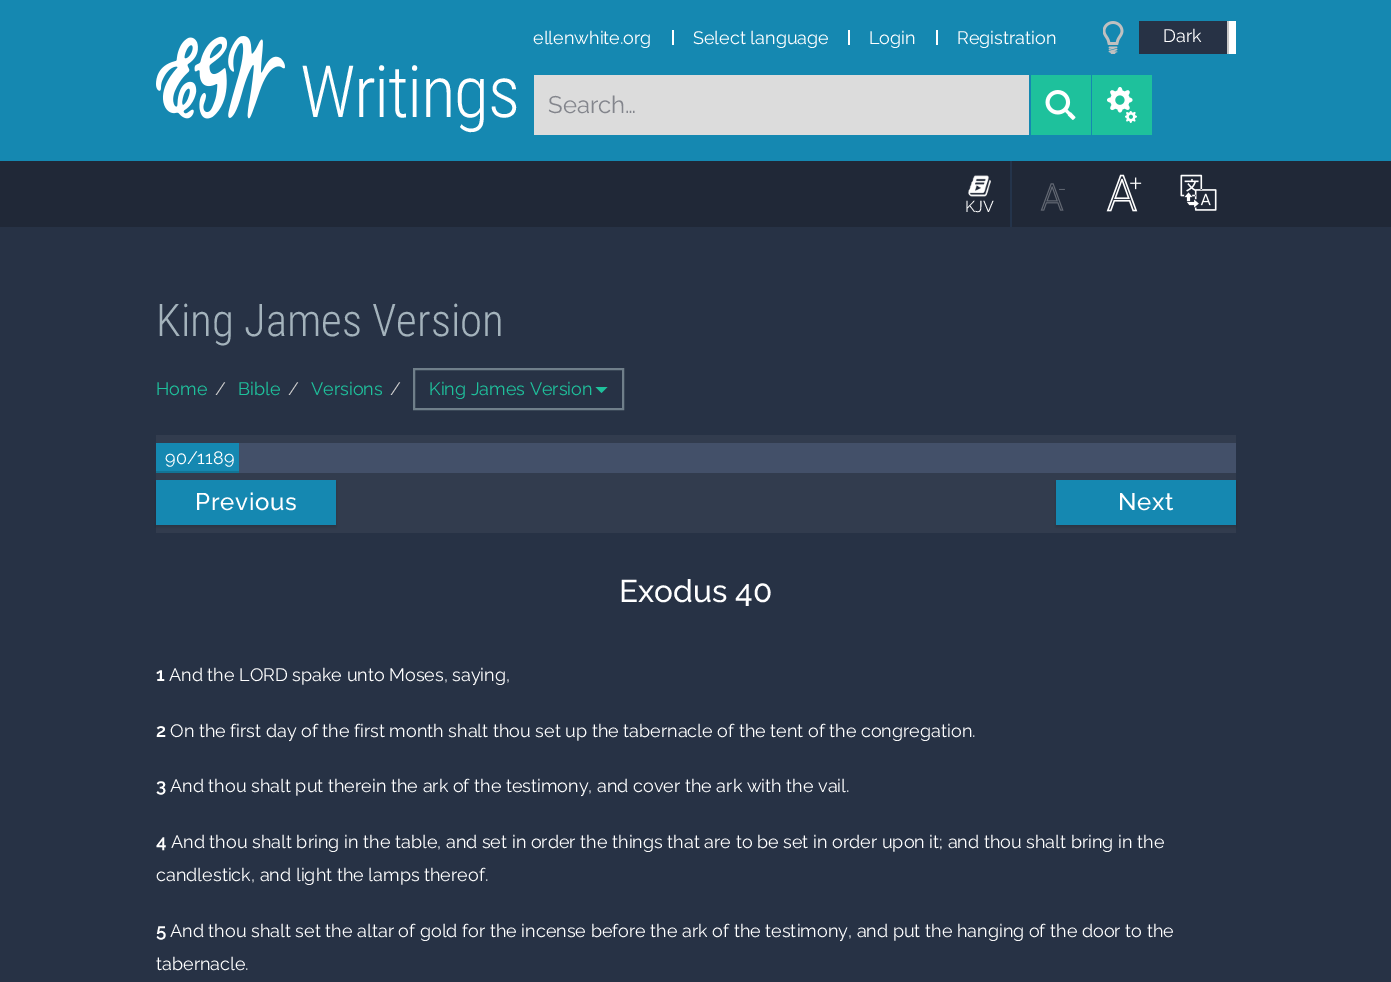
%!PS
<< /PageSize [1391 982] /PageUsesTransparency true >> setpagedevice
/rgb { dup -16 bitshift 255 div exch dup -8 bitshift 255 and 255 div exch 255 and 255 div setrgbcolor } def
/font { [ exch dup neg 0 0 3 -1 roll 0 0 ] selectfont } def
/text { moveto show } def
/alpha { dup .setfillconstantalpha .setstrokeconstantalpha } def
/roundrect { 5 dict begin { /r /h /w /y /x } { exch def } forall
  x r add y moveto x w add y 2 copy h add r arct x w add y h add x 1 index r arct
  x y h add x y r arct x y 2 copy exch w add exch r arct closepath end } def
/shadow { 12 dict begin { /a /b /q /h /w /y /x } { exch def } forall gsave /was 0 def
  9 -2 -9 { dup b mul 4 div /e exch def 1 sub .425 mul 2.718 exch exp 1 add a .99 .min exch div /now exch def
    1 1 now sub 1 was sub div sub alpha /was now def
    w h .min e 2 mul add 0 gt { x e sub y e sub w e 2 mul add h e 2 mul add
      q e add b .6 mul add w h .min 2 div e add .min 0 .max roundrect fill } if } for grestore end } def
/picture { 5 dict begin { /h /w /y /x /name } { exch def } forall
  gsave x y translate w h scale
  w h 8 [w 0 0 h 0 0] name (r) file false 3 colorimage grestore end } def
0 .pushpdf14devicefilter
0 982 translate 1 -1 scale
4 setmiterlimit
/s1 { /Raleway-Regular 18 font 16#FFFFFF rgb } def
/s2 { /Raleway-Regular 24 font 16#83858C rgb } def
/s3 { /Raleway-Regular 16 font 16#FFFFFF rgb } def
/s4 { /RobotoCondensed-Light 45 font 16#A4B3BC rgb } def
/s5 { /Raleway-Regular 18 font 16#1EC19C rgb } def
/s6 { /Raleway-Regular 18 font 16#CCCCCC rgb } def
/s7 { /Raleway-Medium 31.5 font 16#FFFFFF rgb } def
/s8 { /Raleway-Bold 18 font 16#FFFFFF rgb } def
16#273245 rgb
0 0 1391 982 rectfill
16#1588B1 rgb
0 0 1391 161 rectfill
(pic1.raw) 156 36 129 83 picture
/RobotoCondensed-Light 72 font
16#FFFFFF rgb
300 117 moveto -1.5 0 (Writings) ashow
s1
(ellenwhite.org) 533 44 text
672 30 2 15 rectfill
(Select language) 693 44 text
848 30 2 15 rectfill
(Login) 869 44 text
936 30 2 15 rectfill
(Registration) 957 44 text
(pic2.raw) 1103 21 21 33 picture
16#273245 rgb
1139 21 88 33 rectfill
s1
(Dark) 1163 42 text
1229 21 7 33 rectfill
16#C8C8C8 rgb
1227 21 2 33 rectfill
16#DCDCDC rgb
534 75 495 60 rectfill
s2
(Search…) 548 113 text
16#1EC19C rgb
1031 75 60 60 rectfill
(pic3.raw) 1045 90 31 30 picture
1092 75 60 60 rectfill
(pic4.raw) 1107 87 30 36 picture
16#202837 rgb
0 161 1391 66 rectfill
(pic5.raw) 968 175 23 22 picture
s3
(KJV) 965 212 text
16#24344B rgb
1010 161 2 66 rectfill
(pic6.raw) 1040 183 25 28 picture
(pic7.raw) 1106 174 36 38 picture
(pic8.raw) 1180 174 37 37 picture
s4
(King James Version) 156 336 text
s5
(Home) 156 395 text
s6
(/) 215 395 text
s5
(Bible) 238 395 text
s6
(/) 288 395 text
s5
(Versions) 311 395 text
s6
(/) 390 395 text
16#707F8A rgb
2 setlinewidth
414 369 209 40 rectstroke
s5
(King James Version) 429 395 text
595.5 387 moveto 607.5 387 lineto 601.5 393 lineto closepath fill
16#323C4E rgb
156 435 1080 98 rectfill
16#435069 rgb
239 443 997 30 rectfill
16#1588B1 rgb
156 443 83 28 rectfill
16#127496 rgb
156 471 83 2 rectfill
s1
(90/1189) 165 464 text
16#000000 rgb
156 482 180 45 0 1.5 0.15 shadow
16#1588B1 rgb
156 480 180 45 rectfill
/Raleway-Medium 24 font
16#FFFFFF rgb
195 510 moveto 0.75 0 (Previous) ashow
16#000000 rgb
1056 482 180 45 0 1.5 0.15 shadow
16#1588B1 rgb
1056 480 180 45 rectfill
16#FFFFFF rgb
1118 510 moveto 0.75 0 (Next) ashow
s7
(Exodus 40) 619 602 text
s8
(1) 156 681 text
s1
(And the LORD spake unto Moses, saying,) 169 681 text
s8
(2) 156 737 text
s1
(On the first day of the first month shalt thou set up the tabernacle of the tent of the congregation.) 170 737 text
s8
(3) 156 792 text
s1
(And thou shalt put therein the ark of the testimony, and cover the ark with the vail.) 170 792 text
s8
(4) 156 848 text
s1
(And thou shalt bring in the table, and set in order the things that are to be set in order upon it; and thou shalt bring in the) 171 848 text
(candlestick, and light the lamps thereof.) 156 881 text
s8
(5) 156 937 text
s1
(And thou shalt set the altar of gold for the incense before the ark of the testimony, and put the hanging of the door to the) 170 937 text
(tabernacle.) 156 970 text
.poppdf14devicefilter showpage
